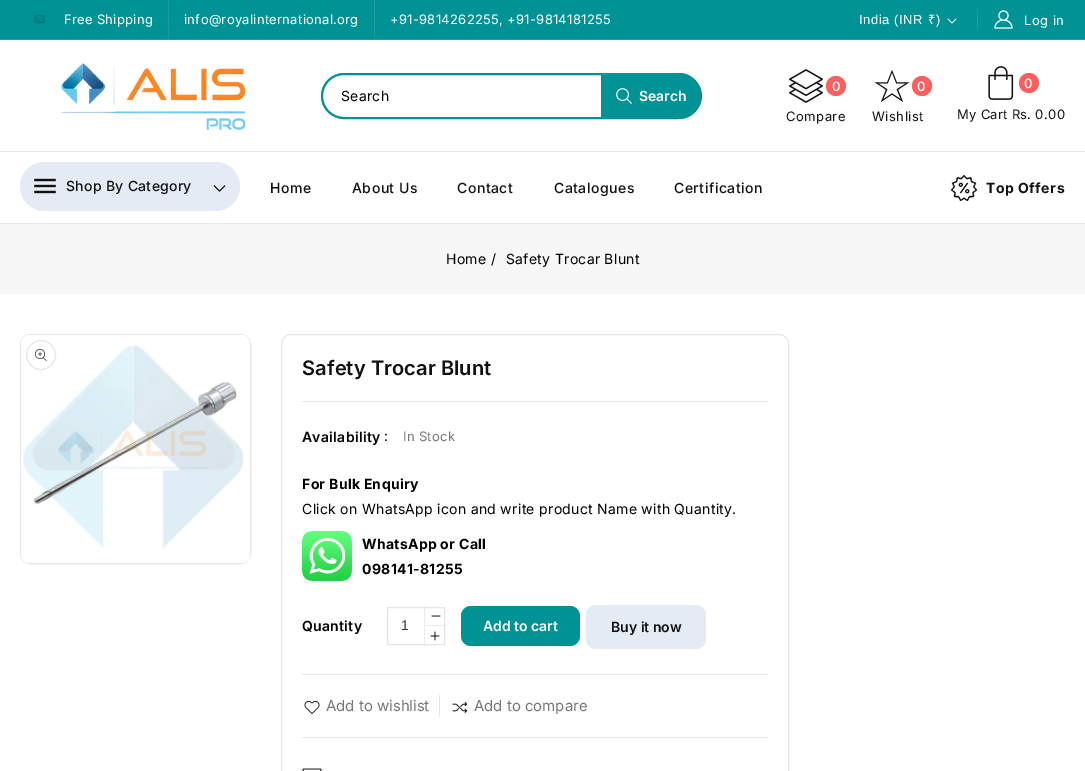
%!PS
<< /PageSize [1085 771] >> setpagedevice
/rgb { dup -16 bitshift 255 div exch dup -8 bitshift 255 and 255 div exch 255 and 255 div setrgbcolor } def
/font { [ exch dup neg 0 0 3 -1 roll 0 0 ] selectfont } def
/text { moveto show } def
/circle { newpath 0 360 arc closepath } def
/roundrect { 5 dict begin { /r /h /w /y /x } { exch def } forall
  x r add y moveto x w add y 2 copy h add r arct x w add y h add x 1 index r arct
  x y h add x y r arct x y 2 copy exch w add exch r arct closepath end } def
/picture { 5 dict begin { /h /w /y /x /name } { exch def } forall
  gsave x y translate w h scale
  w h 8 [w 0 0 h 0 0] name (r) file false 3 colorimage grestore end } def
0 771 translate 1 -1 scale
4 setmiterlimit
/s1 { /Inter-SemiBold 14 font 16#FFFFFF rgb } def
/s2 { /LiberationSans-Regular 14 font 16#353535 rgb } def
/s3 { /Inter-SemiBold 14 font 16#111111 rgb } def
/s4 { /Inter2-Regular 15 font 16#777777 rgb } def
16#FFFFFF rgb
0 0 1085 771 rectfill
16#009294 rgb
0 0 1085 39 rectfill
16#1A9D9F rgb
0 39 1085 1 rectfill
(pic1.raw) 34 15 11 9 picture
168 0 1 39 rectfill
/Inter-Regular 13 font
16#FFFFFF rgb
64 24 moveto 0.3 0 (Free Shipping) ashow
16#1A9D9F rgb
374 0 1 39 rectfill
16#FFFFFF rgb
184 24 moveto 0.3 0 (info@royalinternational.org) ashow
390 24 moveto 0.3 0 (+91-9814262255, +91-9814181255) ashow
/LiberationSans-Regular 13 font
859 24 moveto 0.5 0 (India \(INR) ashow
/NotoSans-Regular 13 font
928 24 moveto 0.5 0 (₹) ashow
/LiberationSans-Regular 13 font
936 24 moveto 0.5 0 (\)) ashow
(pic2.raw) 947 18 10 6 picture
16#1A9D9F rgb
977 9 1 21 rectfill
(pic3.raw) 994 10 19 19 picture
/Inter-Regular 13 font
16#FFFFFF rgb
1024 25 moveto 0.5 0 (Log in) ashow
(pic4.raw) 61 63 185 67 picture
16#009294 rgb
2 setlinewidth
322 74 378 44 22 roundrect stroke
/Inter-Regular 14 font
16#000000 rgb
341 101 moveto 0.3 0 (Search) ashow
16#009294 rgb
601 73 moveto 679 73 lineto 691.5 73 702 83.5 702 96 curveto 702 108.5 691.5 119 679 119 curveto 601 119 lineto closepath fill
(pic5.raw) 616 88 16 16 picture
s1
(Search) 639 101 text
(pic6.raw) 789 69 34 34 picture
16#FB605F rgb
836 86 10 circle fill
/Inter-Medium 13 font
16#FFFFFF rgb
832 91 moveto 0.5 0 (0) ashow
/Inter-Regular 13 font
16#111111 rgb
786 121 moveto 0.5 0 (Compare) ashow
(pic7.raw) 874 70 36 33 picture
16#FB605F rgb
922 86 10 circle fill
/Inter-Medium 13 font
16#FFFFFF rgb
917 91 moveto 0.5 0 (0) ashow
/Inter-Regular 13 font
16#111111 rgb
872 121 moveto 0.5 0 (Wishlist) ashow
(pic8.raw) 988 66 26 34 picture
16#FB605F rgb
1029 83 10 circle fill
/Inter-Medium 13 font
16#FFFFFF rgb
1024 88 moveto 0.5 0 (0) ashow
/Inter-Regular 13 font
16#111111 rgb
957 119 moveto 0.3 0 (My Cart Rs. 0.00) ashow
16#E7E7E7 rgb
0 151 1085 1 rectfill
0 223 1085 1 rectfill
16#E5EBF4 rgb
20 162 220 49 24.5 roundrect fill
(pic9.raw) 34 178 22 16 picture
/Inter-Medium 14 font
16#111111 rgb
66 191 moveto 0.3 0 (Shop By Category) ashow
(pic10.raw) 213 185 13 7 picture
270 193 moveto 0.5 0 (Home) ashow
352 193 moveto 0.5 0 (About Us) ashow
457 193 moveto 0.5 0 (Contact) ashow
554 193 moveto 0.5 0 (Catalogues) ashow
674 193 moveto 0.5 0 (Certification) ashow
(pic11.raw) 951 175 26 26 picture
/Inter-Bold 14 font
986 193 moveto 0.5 0 (Top Offers) ashow
16#F7F7F7 rgb
0 224 1085 70 rectfill
/Inter-Regular 14 font
16#000000 rgb
446 264 moveto 0.3 0 (Home) ashow
491 264 moveto 0.3 0 (/) ashow
506 264 moveto 0.3 0 (Safety Trocar Blunt) ashow
16#E7E7E7 rgb
1 setlinewidth
20.5 334.5 230 229 9.5 roundrect stroke
(pic12.raw) 21 335 229 228 picture
16#FFFFFF rgb
21 335 229 228 9 roundrect fill
(pic14.raw) 23 345 221 204 picture
16#E7E7E7 rgb
41 355 14.5 circle stroke
(pic13.raw) 35 349 12 12 picture
281.5 334.5 507 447 9.5 roundrect stroke
/Inter-SemiBold 20 font
16#111111 rgb
302 375 moveto 0.1 0 (Safety Trocar Blunt) ashow
16#E7E7E7 rgb
302 401 466 1 rectfill
/Inter-SemiBold 14 font
16#000000 rgb
302 442 moveto 0.3 0 (Availability) ashow
/Inter-Regular 14 font
384 441 moveto 0.3 0 (:) ashow
/Inter-Regular 13 font
16#777777 rgb
403 441 moveto 0.3 0 (In Stock) ashow
/Inter-Bold 14 font
16#000000 rgb
302 489 moveto 0.3 0 (For Bulk Enquiry) ashow
/Inter-Regular 14 font
302 514 moveto 0.3 0 (Click on WhatsApp icon and write product Name with Quantity.) ashow
(pic15.raw) 302 531 50 50 picture
/Inter-Bold 14 font
362 549 moveto 0.3 0 (WhatsApp or Call) ashow
362 574 moveto 0.3 0 (098141-81255) ashow
/Inter-SemiBold 14 font
302 631 moveto 0.3 0 (Quantity) ashow
16#EAEAEA rgb
424 606 1 40 rectfill
426 625 20 1 rectfill
(pic16.raw) 431 615 10 2 picture
(pic17.raw) 430 631 10 10 picture
16#E5E5E5 rgb
387.5 607.5 57 37 rectstroke
s2
(1) 401 630 text
16#009294 rgb
461 606 119 40 10 roundrect fill
s1
(Add to cart) 483 631 text
16#E5EBF4 rgb
586 605 120 44 10 roundrect fill
s3
(Buy it now) 611 632 text
16#E7E7E7 rgb
302 674 466 1 rectfill
302 737 466 1 rectfill
439 695 1 22 rectfill
(pic18.raw) 304 700 16 14 picture
s4
(Add to wishlist) 326 711 text
(pic19.raw) 452 702 16 11 picture
(Add to compare) 474 711 text
(pic20.raw) 302 768 20 3 picture
showpage
